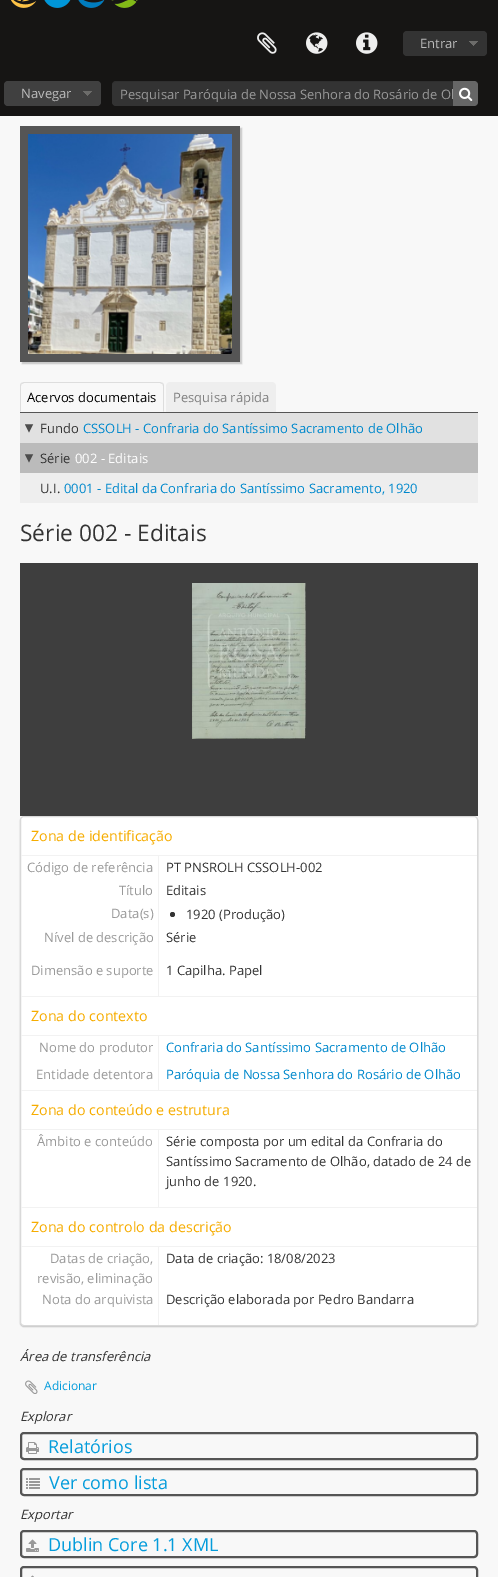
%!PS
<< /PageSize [498 1577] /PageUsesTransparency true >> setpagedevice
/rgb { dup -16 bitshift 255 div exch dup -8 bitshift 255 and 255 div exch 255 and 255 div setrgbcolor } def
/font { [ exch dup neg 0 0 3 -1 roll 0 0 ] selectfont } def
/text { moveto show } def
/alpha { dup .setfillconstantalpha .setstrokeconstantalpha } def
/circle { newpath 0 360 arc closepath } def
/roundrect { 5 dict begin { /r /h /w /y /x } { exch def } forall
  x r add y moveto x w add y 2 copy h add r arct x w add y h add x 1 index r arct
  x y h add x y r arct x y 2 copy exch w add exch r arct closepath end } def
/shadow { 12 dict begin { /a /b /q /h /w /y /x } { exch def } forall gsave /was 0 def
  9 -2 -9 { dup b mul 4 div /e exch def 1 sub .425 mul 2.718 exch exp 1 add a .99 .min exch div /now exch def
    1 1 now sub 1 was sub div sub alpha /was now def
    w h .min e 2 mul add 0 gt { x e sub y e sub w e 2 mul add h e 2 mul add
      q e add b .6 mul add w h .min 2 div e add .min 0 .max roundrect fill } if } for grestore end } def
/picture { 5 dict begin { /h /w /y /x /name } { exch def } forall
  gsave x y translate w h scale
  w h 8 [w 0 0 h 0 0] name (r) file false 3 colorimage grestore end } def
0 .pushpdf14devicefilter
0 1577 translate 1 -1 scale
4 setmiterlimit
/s1 { /OpenSans-Regular 13 font 16#BBBBBB rgb } def
/s2 { /OpenSans-Regular 13 font 16#999999 rgb } def
/s3 { /OpenSans-Regular 13 font 16#000000 rgb } def
/s4 { /OpenSans-Regular 13 font 16#808080 rgb } def
/s5 { /OpenSans-Regular 13 font 16#333333 rgb } def
/s6 { /OpenSans-Regular 13 font 16#0088CC rgb } def
/s7 { /OpenSans-Regular 13 font 16#FFFFFF rgb } def
/s8 { /OpenSans-Regular 22.75 font 16#333333 rgb } def
/s9 { /OpenSans-Regular 14.25 font 16#F6AC00 rgb } def
/s10 { /OpenSans-Italic 13 font 16#333333 rgb } def
/s11 { /OpenSans-Regular 12 font 16#049CDB rgb } def
/s12 { /OpenSans-Regular 18 font 16#049CDB rgb } def
16#F8F8F8 rgb
0 0 498 1577 rectfill
16#161514 rgb
0 0 498 116 rectfill
(pic1.raw) 11 0 127 8 picture
(pic2.raw) 257 32 20 22 picture
(pic3.raw) 306 32 22 22 picture
(pic4.raw) 356 32 22 22 picture
16#333333 rgb
403 31 84 25 4 roundrect fill
(pic5.raw) 469 41 9 5 picture
s1
(Entrar) 420 48 text
16#404040 rgb
4 81 97 25 4 roundrect fill
(pic6.raw) 83 91 9 5 picture
s1
(Navegar) 21 98 text
16#333333 rgb
112 81 366 25 4 roundrect fill
0.07 alpha
16#000000 rgb
116 82 moveto 474 82 lineto 476 82 478 84 478 86 curveto 477 83 lineto 475 81 lineto 116 81 lineto 113 81 112 83 112 86 curveto 112 84 114 82 116 82 curveto closepath fill
1 alpha
s2
(Pesquisar Paróquia de Nossa Senhora do Rosário de Ol) 120 99 text
16#666666 rgb
453 81 moveto 474 81 lineto 476 81 478 83 478 85 curveto 478 102 lineto 478 104 476 106 474 106 curveto 453 106 lineto closepath fill
(pic7.raw) 459 87 14 14 picture
16#191919 rgb
22 128 220 236 0 0.5 0.2 shadow
16#555555 rgb
20 126 220 236 rectfill
(pic8.raw) 28 134 204 220 picture
20 412 458 1 rectfill
16#DDDDDD rgb
24 382 moveto 21 383 lineto 22 384 lineto 24 383 lineto 160 383 lineto 162 384 lineto 163 383 lineto 160 382 lineto closepath fill
164 412 moveto 164 386 lineto 164 385 163.5 384 163 383 curveto 162 384 lineto 163 384 163 385 163 386 curveto 163 411 lineto closepath fill
20 412 moveto 21 411 lineto 21 386 lineto 21 385 21 384 22 384 curveto 21 383 lineto 20.5 384 20 385 20 386 curveto closepath fill
s3
(Acervos documentais) 27 402 text
16#EEEEEE rgb
170 382 moveto 272 382 lineto 274 382 276 384 276 386 curveto 276 412 lineto 166 412 lineto 166 386 lineto 166 384 168 382 170 382 curveto closepath fill
s4
(Pesquisa rápida) 173 402 text
16#EEEEEE rgb
20 473 458 30 rectfill
16#E1E1E1 rgb
20 413 458 30 rectfill
(pic9.raw) 25 424 9 9 picture
s5
(Fundo) 40 433 text
s6
(CSSOLH - Confraria do Santíssimo Sacramento de Olhão) 83 433 text
16#BBBBBB rgb
20 443 458 30 rectfill
(pic10.raw) 25 454 9 9 picture
s5
(Série) 40 463 text
s7
(002 - Editais) 75 463 text
s5
(U.I.) 40 493 text
s6
(0001 - Edital da Confraria do Santíssimo Sacramento, 1920) 64 493 text
s8
(Série 002 - Editais) 20 541 text
16#3E3E3E rgb
20 563 458 253 rectfill
(pic11.raw) 192 583 114 156 picture
16#000000 rgb
20 817 458 510 4 0.5 0.2 shadow
16#FFFFFF rgb
20.5 816.5 457 509 3.5 roundrect gsave fill grestore
16#D9D9D9 rgb
stroke
16#F2F2F2 rgb
21 855 456 1 rectfill
s9
(Zona de identificação) 31 841 text
16#F2F2F2 rgb
158 856 1 140 rectfill
s2
(Código de referência) 27 872 text
s5
(PT PNSROLH CSSOLH-002) 166 872 text
s2
(Título) 119 895 text
s5
(Editais) 166 895 text
s2
(Data\(s\)) 111 918 text
16#333333 rgb
172.5 914.5 2.5 circle fill
(1920 \(Produção\)) 186 919 text
s2
(Nível de descrição) 44 942 text
s5
(Série) 166 942 text
s2
(Dimensão e suporte) 31 975 text
s5
(1 Capilha. Papel) 166 975 text
16#F2F2F2 rgb
21 996 456 1 rectfill
21 1035 456 1 rectfill
s9
(Zona do contexto) 31 1021 text
16#F2F2F2 rgb
158 1036 1 54 rectfill
s2
(Nome do produtor) 39 1052 text
s6
(Confraria do Santíssimo Sacramento de Olhão) 166 1052 text
s2
(Entidade detentora) 36 1079 text
s6
(Paróquia de Nossa Senhora do Rosário de Olhão) 166 1079 text
16#F2F2F2 rgb
21 1090 456 1 rectfill
21 1129 456 1 rectfill
s9
(Zona do conteúdo e estrutura) 31 1115 text
16#F2F2F2 rgb
158 1130 1 77 rectfill
s2
(Âmbito e conteúdo) 37 1146 text
s5
(Série composta por um edital da Confraria do) 166 1146 text
(Santíssimo Sacramento de Olhão, datado de 24 de) 166 1166 text
(junho de 1920.) 166 1186 text
16#F2F2F2 rgb
21 1207 456 1 rectfill
21 1246 456 1 rectfill
s9
(Zona do controlo da descrição) 31 1232 text
16#F2F2F2 rgb
158 1247 1 78 rectfill
s2
(Datas de criação,) 50 1263 text
(revisão, eliminação) 37 1283 text
s5
(Data de criação: 18/08/2023) 166 1263 text
s2
(Nota do arquivista) 42 1304 text
s5
(Descrição elaborada por Pedro Bandarra) 166 1304 text
s10
(Área de transferência) 20 1361 text
(pic12.raw) 25 1380 13 14 picture
s11
(Adicionar) 44 1390 text
s10
(Explorar) 20 1421 text
16#555555 rgb
2 setlinewidth
21 1433 456 26 3 roundrect stroke
(pic13.raw) 26 1442 13 12 picture
s12
(Relatórios) 48 1453 text
16#555555 rgb
21 1469 456 26 3 roundrect stroke
(pic14.raw) 26 1478 14 11 picture
s12
(Ver como lista) 49 1489 text
s10
(Exportar) 20 1519 text
16#555555 rgb
21 1531 456 26 3 roundrect stroke
(pic15.raw) 26 1539 13 13 picture
s12
(Dublin Core 1.1 XML) 48 1551 text
16#555555 rgb
21 1567 456 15 3 roundrect stroke
(pic16.raw) 31 1575 3 2 picture
.poppdf14devicefilter showpage
